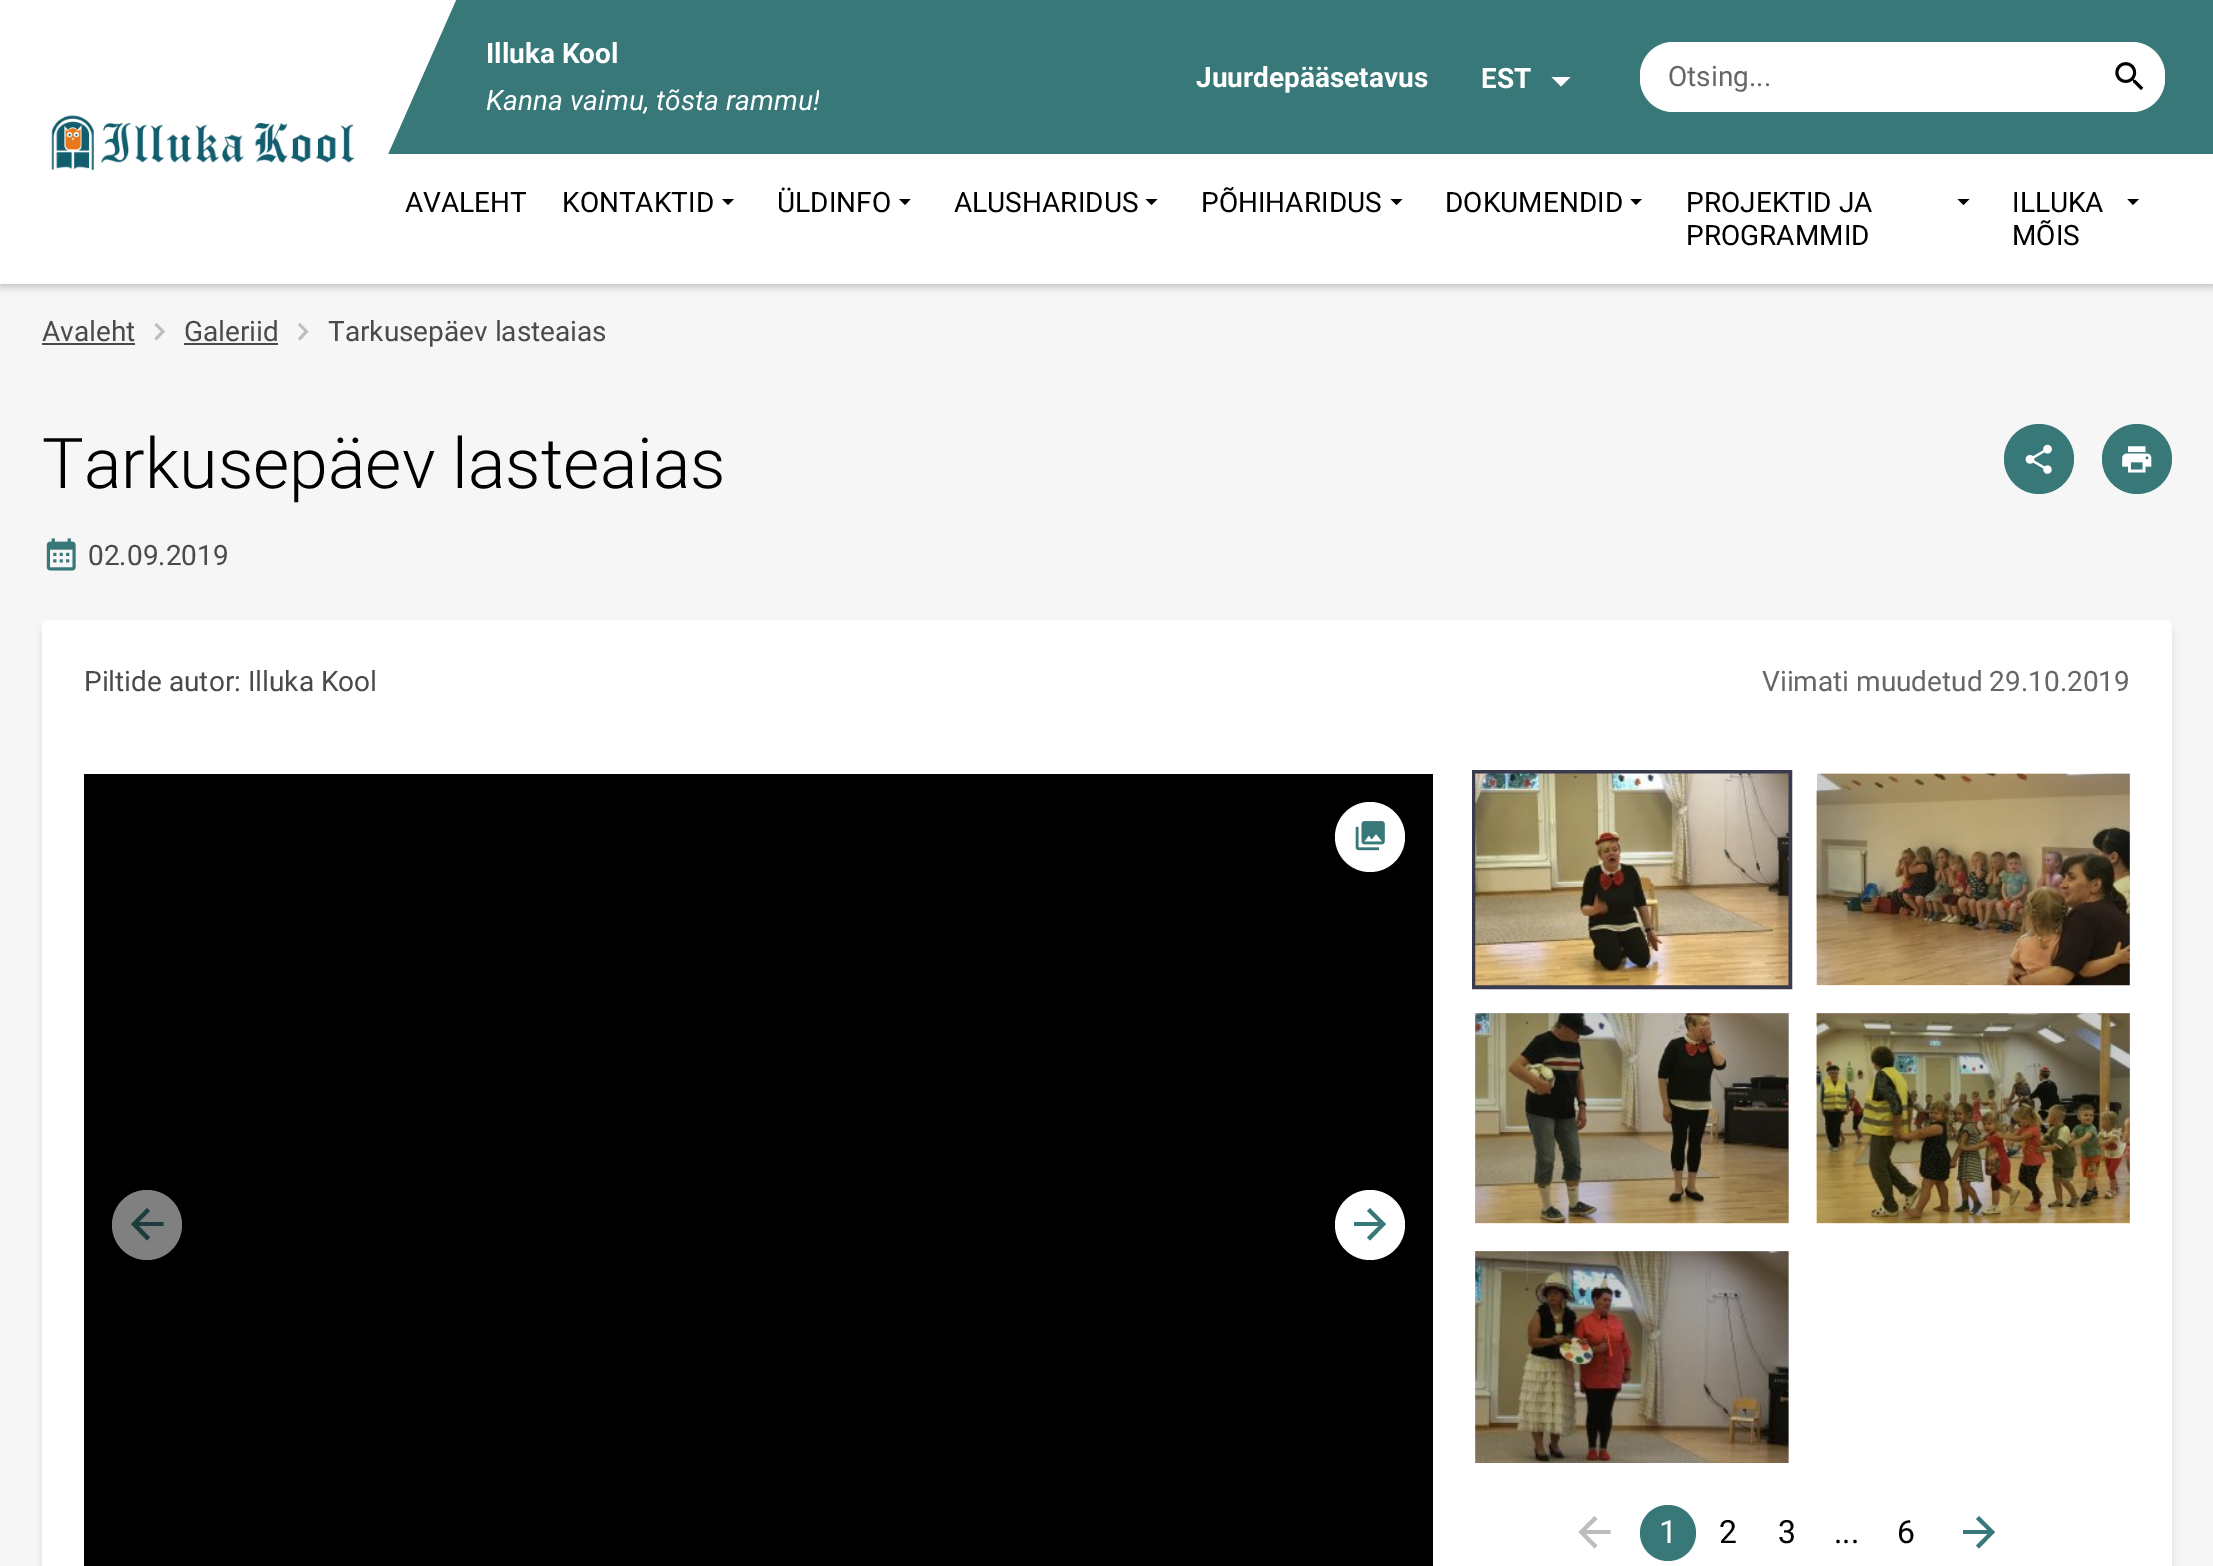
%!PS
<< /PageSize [2213 1566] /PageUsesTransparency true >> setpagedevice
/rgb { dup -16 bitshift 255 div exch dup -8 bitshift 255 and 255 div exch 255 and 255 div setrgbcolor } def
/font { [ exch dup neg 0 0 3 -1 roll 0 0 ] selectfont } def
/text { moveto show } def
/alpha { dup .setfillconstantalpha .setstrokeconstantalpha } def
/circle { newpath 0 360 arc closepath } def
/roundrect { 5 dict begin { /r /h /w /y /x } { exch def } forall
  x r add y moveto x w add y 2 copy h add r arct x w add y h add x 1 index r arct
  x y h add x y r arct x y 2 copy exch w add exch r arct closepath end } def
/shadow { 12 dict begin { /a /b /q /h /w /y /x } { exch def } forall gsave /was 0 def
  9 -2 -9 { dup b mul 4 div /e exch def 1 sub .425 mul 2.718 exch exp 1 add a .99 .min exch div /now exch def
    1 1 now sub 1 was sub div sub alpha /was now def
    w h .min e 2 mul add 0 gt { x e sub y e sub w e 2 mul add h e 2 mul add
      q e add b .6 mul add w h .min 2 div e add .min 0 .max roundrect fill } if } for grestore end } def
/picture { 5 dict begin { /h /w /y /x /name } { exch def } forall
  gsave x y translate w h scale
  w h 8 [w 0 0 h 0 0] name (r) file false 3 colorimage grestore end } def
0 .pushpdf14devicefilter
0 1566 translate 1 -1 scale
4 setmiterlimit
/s1 { /Roboto-Bold 28 font 16#FFFFFF rgb } def
/s2 { /Roboto-Italic 28 font 16#FFFFFF rgb } def
/s3 { /Roboto-Regular 28 font 16#666666 rgb } def
/s4 { /Roboto-Regular 28 font 16#000000 rgb } def
/s5 { /Roboto-Regular 28 font 16#4A4A4A rgb } def
/s6 { /Roboto-Light 70 font 16#000000 rgb } def
/s7 { /Roboto-Regular 32 font 16#FFFFFF rgb } def
/s8 { /Roboto-Regular 32 font 16#000000 rgb } def
16#FFFFFF rgb
0 0 2213 1566 rectfill
16#F6F6F6 rgb
0 284 2213 1282 rectfill
gsave
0 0 moveto 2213 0 lineto 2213 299 lineto 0 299 lineto closepath 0 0 moveto 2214 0 lineto 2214 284 lineto 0 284 lineto closepath eoclip newpath
16#000000 rgb
0 4 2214 283 0 3.5 0.2 shadow
grestore
16#397879 rgb
388 0 1825 154 rectfill
16#FFFFFF rgb
369 0 moveto 456 0 lineto 388 154 lineto 300 154 lineto closepath fill
(pic1.raw) 51 115 304 55 picture
s1
(Illuka Kool) 486 63 text
gsave
485 37 334 80 rectclip
s2
(Kanna vaimu, tõsta rammu!) 486 110 text
grestore
(Juurdepääsetavus) 1196 87 text
(EST) 1481 88 text
1551.5 77 moveto 1561 86.5 lineto 1570.5 77 lineto closepath fill
16#ECF2F2 rgb
1640 42 525 70 33 roundrect fill
16#FFFFFF rgb
1640 42 525 70 35 roundrect fill
s3
(Otsing...) 1668 86 text
(pic2.raw) 2115 62 29 28 picture
16#FFFFFF rgb
387 283 1778 1 rectfill
s4
(AVALEHT) 405 212 text
(KONTAKTID) 562 212 text
722 199 moveto 728 205 lineto 734 199 lineto closepath fill
(ÜLDINFO) 777 212 text
899 199 moveto 905 205 lineto 910.5 199 lineto closepath fill
(ALUSHARIDUS) 954 212 text
1145.5 199 moveto 1151.5 205 lineto 1157.5 199 lineto closepath fill
(PÕHIHARIDUS) 1201 212 text
1390.5 199 moveto 1396.5 205 lineto 1402.5 199 lineto closepath fill
(DOKUMENDID) 1445 212 text
1630.5 199 moveto 1636 205 lineto 1642 199 lineto closepath fill
(PROJEKTID JA) 1686 212 text
1957.5 199 moveto 1963.5 205 lineto 1969.5 199 lineto closepath fill
(PROGRAMMID) 1686 245 text
(ILLUKA) 2012 212 text
2127.5 199 moveto 2133 205 lineto 2139 199 lineto closepath fill
(MÕIS) 2012 245 text
s5
(Avaleht) 42 341 text
42 343 93 2 rectfill
16#BDBDBD rgb
154.5 338.5 moveto 161 331.5 lineto 154.5 325 lineto 156.5 323 lineto 165 331.5 lineto 156.5 340.5 lineto closepath fill
s5
(Galeriid) 184 341 text
184 343 94 2 rectfill
16#BDBDBD rgb
298 338.5 moveto 304.5 331.5 lineto 298 325 lineto 300 323 lineto 308.5 331.5 lineto 300 340.5 lineto closepath fill
s5
(Tarkusepäev lasteaias) 328 341 text
s6
(Tarkusepäev lasteaias) 42 488 text
16#397879 rgb
2039 459 35 circle fill
(pic3.raw) 2025 444 27 30 picture
2137 459 35 circle fill
(pic4.raw) 2122 446 30 27 picture
(pic5.raw) 46 538 30 33 picture
s5
(02.09.2019) 88 565 text
16#000000 rgb
42 627 2130 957 7 3.5 0.1 shadow
16#FFFFFF rgb
42 620 2130 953 7 roundrect fill
16#CCCCCC rgb
1475 1251 314 212 rectfill
1817 1013 313 210 rectfill
1475 1013 314 210 rectfill
s5
(Piltide autor: Illuka Kool) 84 691 text
s3
(Viimati muudetud 29.10.2019) 1762 691 text
16#000000 rgb
84 774 1349 792 rectfill
16#FFFFFF rgb
1370 837 35 circle fill
(pic6.raw) 1355 821 30 30 picture
16#808080 rgb
147 1225 35 circle fill
16#1D3C3D rgb
163.5 1222 moveto 163.5 1226 lineto 139 1226 lineto 150 1237.5 lineto 147 1240.5 lineto 131 1224 lineto 147 1208 lineto 150 1211 lineto 139 1222 lineto closepath fill
16#FFFFFF rgb
1370 1225 35 circle fill
16#397879 rgb
1354 1222 moveto 1354 1226 lineto 1378.5 1226 lineto 1367 1237.5 lineto 1370 1240.5 lineto 1386 1224 lineto 1370 1208 lineto 1367 1211 lineto 1378.5 1222 lineto closepath fill
16#393A4D rgb
4 setlinewidth
1474 772 316 215 rectstroke
(pic7.raw) 1475 773 314 213 picture
(pic8.raw) 1816 773 314 213 picture
(pic9.raw) 1475 1013 314 211 picture
(pic10.raw) 1816 1013 314 211 picture
(pic11.raw) 1475 1251 314 212 picture
16#BDBDBD rgb
1610.5 1530 moveto 1610.5 1534 lineto 1586 1534 lineto 1597.5 1545.5 lineto 1594.5 1548.5 lineto 1578.5 1532 lineto 1594.5 1516 lineto 1597.5 1519 lineto 1586 1530 lineto closepath fill
16#397879 rgb
1668 1533 28 circle fill
s7
(1) 1659 1543 text
s8
(2) 1719 1543 text
(3) 1778 1543 text
(...) 1834 1543 text
(6) 1897 1543 text
16#397879 rgb
1963 1530 moveto 1963 1534 lineto 1987.5 1534 lineto 1976 1545.5 lineto 1979 1548.5 lineto 1995 1532 lineto 1979 1516 lineto 1976 1519 lineto 1987.5 1530 lineto closepath fill
.poppdf14devicefilter showpage
